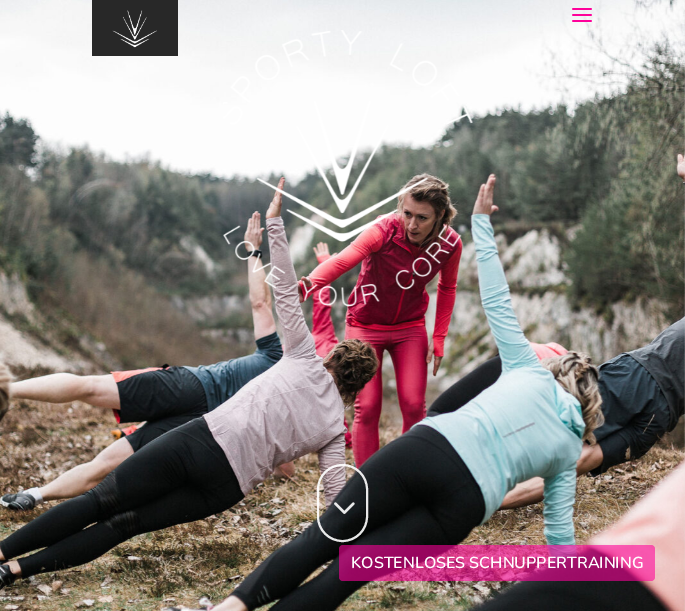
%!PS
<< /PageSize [685 611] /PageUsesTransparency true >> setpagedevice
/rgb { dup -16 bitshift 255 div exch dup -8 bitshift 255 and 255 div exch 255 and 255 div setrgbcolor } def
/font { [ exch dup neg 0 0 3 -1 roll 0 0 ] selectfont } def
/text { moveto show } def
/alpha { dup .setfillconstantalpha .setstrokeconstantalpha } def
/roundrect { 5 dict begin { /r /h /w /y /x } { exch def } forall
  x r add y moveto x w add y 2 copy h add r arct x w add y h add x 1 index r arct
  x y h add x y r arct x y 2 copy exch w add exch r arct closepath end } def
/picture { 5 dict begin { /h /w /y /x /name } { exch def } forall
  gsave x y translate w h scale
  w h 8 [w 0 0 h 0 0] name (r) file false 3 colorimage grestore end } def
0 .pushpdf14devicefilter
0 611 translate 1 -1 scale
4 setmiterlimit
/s1 { /Nunito-SemiBold 16 font 16#FFFFFF rgb } def
16#FFFFFF rgb
0 0 685 611 rectfill
(pic1.raw) 684 0 1 611 picture
(pic2.raw) 0 0 685 611 picture
(pic3.raw) 223 30 250 277 picture
0.9 alpha
2 setlinewidth
318 465 49 76 24.5 roundrect stroke
1 alpha
(pic4.raw) 334 502 21 12 picture
16#282828 rgb
92 0 86 56 rectfill
(pic5.raw) 112 10 45 38 picture
(pic6.raw) 572 8 20 14 picture
0.58 alpha
16#FE019A rgb
339 545 316 36 4 roundrect fill
1 alpha
s1
(KOSTENLOSES SCHNUPPERTRAINING) 351 568 text
.poppdf14devicefilter showpage
